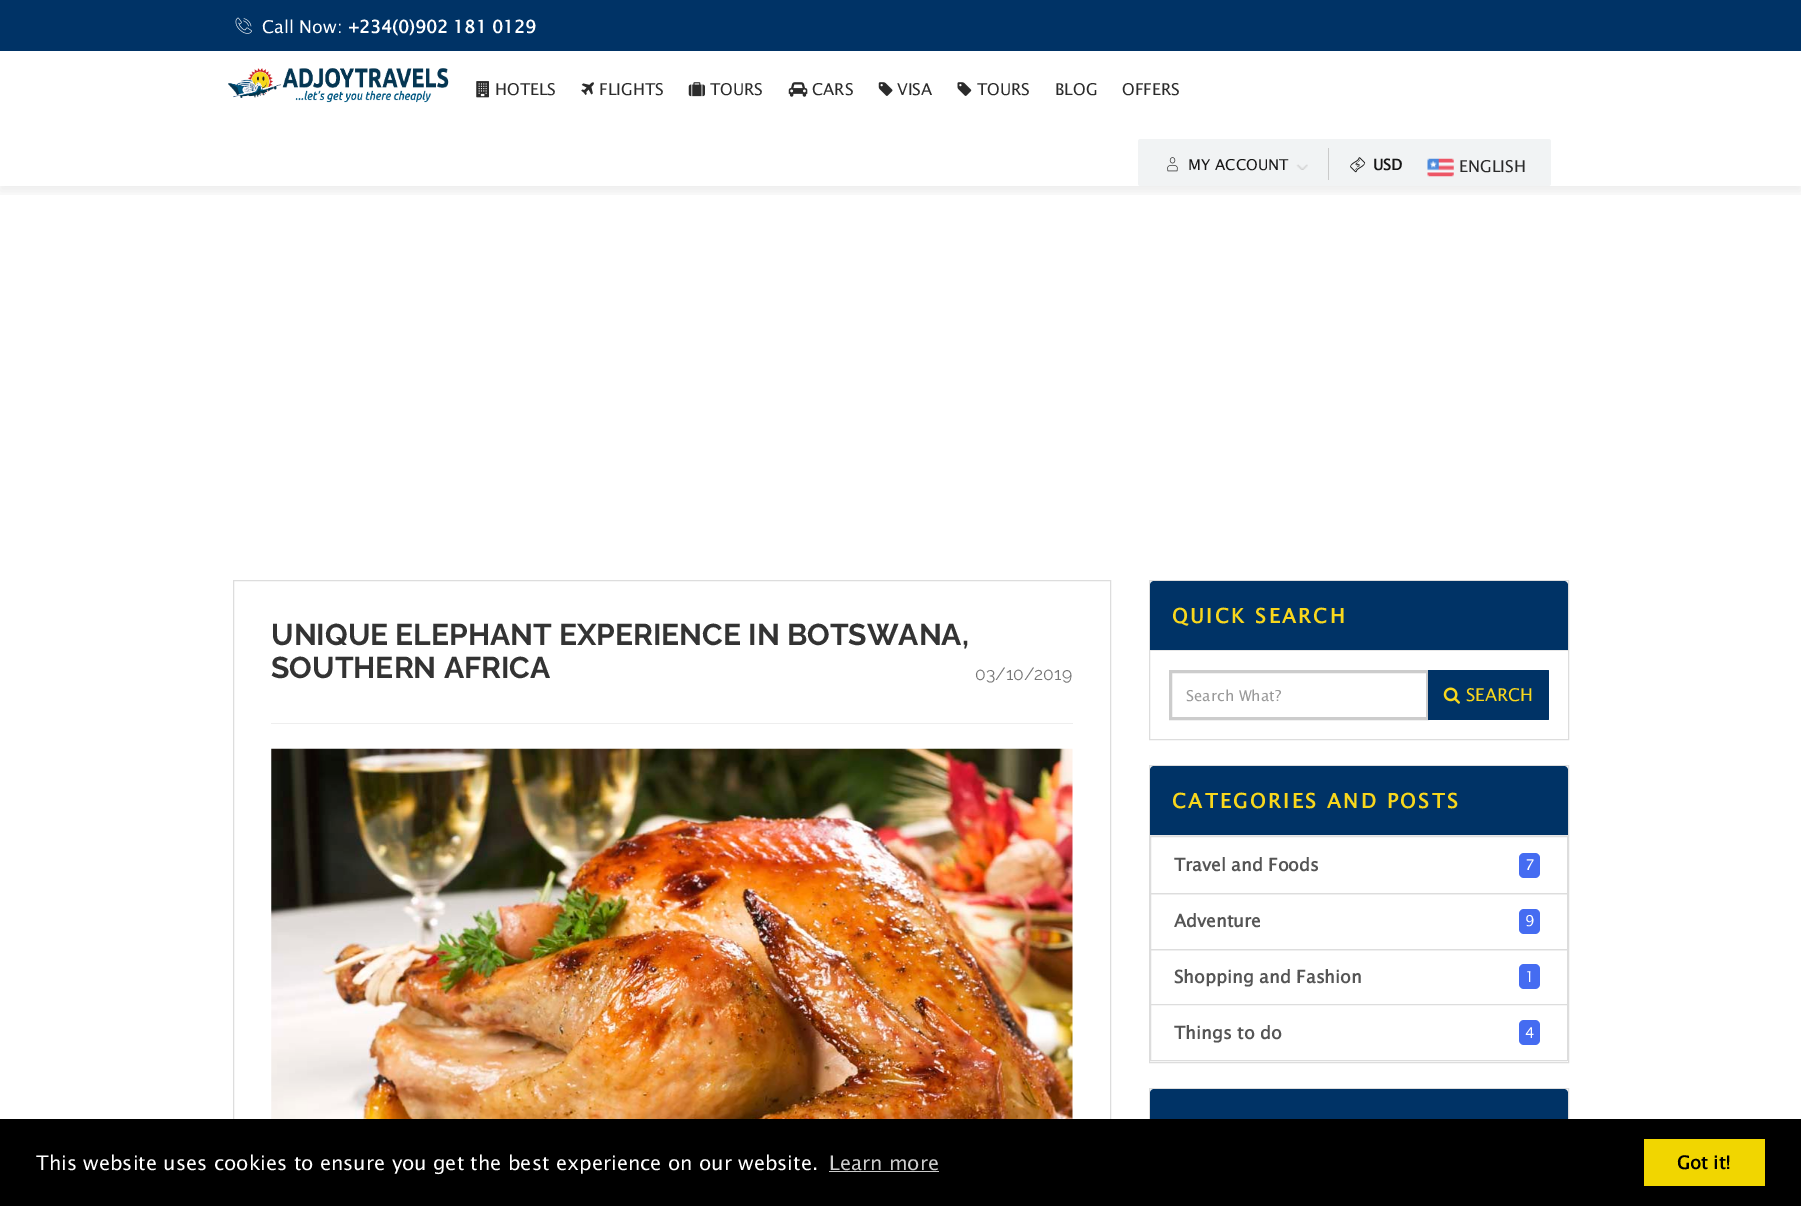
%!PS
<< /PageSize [1801 1206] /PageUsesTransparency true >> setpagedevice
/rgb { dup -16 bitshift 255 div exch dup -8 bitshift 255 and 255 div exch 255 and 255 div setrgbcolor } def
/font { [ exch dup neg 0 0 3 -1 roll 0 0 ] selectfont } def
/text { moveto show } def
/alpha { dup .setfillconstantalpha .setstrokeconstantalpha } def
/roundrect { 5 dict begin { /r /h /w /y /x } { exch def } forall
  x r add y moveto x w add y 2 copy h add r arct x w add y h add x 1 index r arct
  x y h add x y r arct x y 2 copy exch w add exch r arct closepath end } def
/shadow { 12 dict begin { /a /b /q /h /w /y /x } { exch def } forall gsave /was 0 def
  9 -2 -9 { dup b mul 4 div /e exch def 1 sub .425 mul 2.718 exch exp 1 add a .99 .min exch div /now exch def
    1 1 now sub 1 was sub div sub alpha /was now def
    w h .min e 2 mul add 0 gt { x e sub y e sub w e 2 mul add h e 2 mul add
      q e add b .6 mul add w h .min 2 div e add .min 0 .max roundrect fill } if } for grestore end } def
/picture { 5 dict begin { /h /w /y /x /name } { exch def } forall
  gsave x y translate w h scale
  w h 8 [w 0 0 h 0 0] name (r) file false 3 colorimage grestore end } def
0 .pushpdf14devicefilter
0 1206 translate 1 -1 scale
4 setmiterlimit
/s1 { /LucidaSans-Regular 17.5 font 16#FFFFFF rgb } def
/s2 { /LucidaSans-Bold 17.5 font 16#FFFFFF rgb } def
/s3 { /LucidaSans-Regular 16.25 font 16#2B2B2B rgb } def
/s4 { /LucidaSans-Regular 15 font 16#171717 rgb } def
/s5 { /LucidaSans-Bold 15 font 16#171717 rgb } def
/s6 { /Raleway-Bold 30 font 16#333333 rgb } def
/s7 { /Raleway-Regular 17.5 font 16#777777 rgb } def
/s8 { /LucidaSans-Regular 15 font 16#999999 rgb } def
/s9 { /LucidaSans-Regular 17.5 font 16#F9D71C rgb } def
/s10 { /LucidaSans-Bold 17.5 font 16#555555 rgb } def
/s11 { /LucidaSans-Regular 15 font 16#FFFFFF rgb } def
/s12 { /LucidaSans-Regular 20 font 16#FFFFFF rgb } def
/s13 { /LucidaSans-Regular 20 font 16#CCCCCC rgb } def
/s14 { /LucidaSans-Bold 18 font 16#000000 rgb } def
16#FFFFFF rgb
0 0 1801 1206 rectfill
16#003366 rgb
0 0 1801 51 rectfill
(pic1.raw) 235 17 17 17 picture
s1
(Call Now:) 262 33 text
s2
(+234\(0\)902 181 0129) 348 33 text
gsave
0 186 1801 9 rectclip
16#161616 rgb
0 56 1801 135 0 6 0.08 shadow
grestore
(pic2.raw) 228 68 221 35 picture
(pic3.raw) 476 81 13 17 picture
s3
(HOTELS) 495 95 text
(pic4.raw) 581 82 13 13 picture
(FLIGHTS) 599 95 text
(pic5.raw) 688 82 17 15 picture
(TOURS) 710 95 text
(pic6.raw) 788 82 20 15 picture
(CARS) 812 95 text
(pic7.raw) 878 82 15 14 picture
(VISA) 897 95 text
(pic8.raw) 957 82 15 14 picture
(TOURS) 977 95 text
(BLOG) 1055 95 text
(OFFERS) 1122 95 text
16#F1F3F4 rgb
1138 139 413 47 2.5 roundrect fill
(pic9.raw) 1167 157 11 15 picture
s4
(MY ACCOUNT) 1188 170 text
(pic10.raw) 1296 164 12 6 picture
16#CACACA rgb
1328 148 1 32 rectfill
(pic11.raw) 1350 157 16 16 picture
s5
(USD) 1373 170 text
(pic12.raw) 1427 158 27 19 picture
s3
(ENGLISH) 1459 172 text
16#DDDDDD rgb
233.5 580.5 877 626 rectstroke
s6
(UNIQUE ELEPHANT EXPERIENCE IN BOTSWANA,) 271 645 text
(SOUTHERN AFRICA) 271 678 text
s7
(03/10/2019) 975 680 text
16#EEEEEE rgb
271 723 802 1 rectfill
(pic13.raw) 271 748 802 371 picture
16#DDDDDD rgb
1149.5 580.5 419 159 rectstroke
16#003366 rgb
1154 581 moveto 1564 581 lineto 1566 581 1568 583 1568 585 curveto 1568 651 lineto 1150 651 lineto 1150 585 lineto 1150 583 1152 581 1154 581 curveto closepath fill
16#E7E7E7 rgb
1150 650 418 1 rectfill
/LucidaSans-Bold 20 font
16#F9D71C rgb
1172 623 moveto 2.5 0 (QUICK SEARCH) ashow
16#CCCCCC rgb
3 setlinewidth
1170.5 671.5 257 47 rectstroke
s8
(Search What?) 1186 701 text
16#003366 rgb
1428 670 moveto 1548 670 lineto 1548.5 670 1549 670.5 1549 671 curveto 1549 719 lineto 1549 719.5 1548.5 720 1548 720 curveto 1428 720 lineto closepath fill
(pic14.raw) 1443 687 17 17 picture
s9
(SEARCH) 1466 701 text
16#DDDDDD rgb
1 setlinewidth
1149.5 765.5 419 297 rectstroke
16#003366 rgb
1154 766 moveto 1564 766 lineto 1566 766 1568 768 1568 770 curveto 1568 836 lineto 1150 836 lineto 1150 770 lineto 1150 768 1152 766 1154 766 curveto closepath fill
16#E7E7E7 rgb
1150 835 418 1 rectfill
/LucidaSans-Bold 20 font
16#F9D71C rgb
1172 808 moveto 2.5 0 (CATEGORIES AND POSTS) ashow
16#DDDDDD rgb
1150.5 836.5 417 57 rectstroke
s10
(Travel and Foods) 1174 871 text
16#456CF1 rgb
1519 853 21 25 5 roundrect fill
s11
(7) 1525 870 text
16#DDDDDD rgb
1150.5 893.5 417 56 rectstroke
s10
(Adventure) 1174 927 text
16#456CF1 rgb
1519 909 21 25 5 roundrect fill
s11
(9) 1525 926 text
16#DDDDDD rgb
1150.5 949.5 417 55 rectstroke
s10
(Shopping and Fashion) 1174 983 text
16#456CF1 rgb
1519 964 21 25 5 roundrect fill
s11
(1) 1525 982 text
1150.5 1004.5 moveto 1567.5 1004.5 lineto 1567.5 1060 lineto 1567.5 1060.5 1567.5 1060.5 1567 1060.5 curveto 1151 1060.5 lineto 1150.5 1060.5 1150.5 1060.5 1150.5 1060 curveto closepath gsave fill grestore
16#DDDDDD rgb
stroke
s10
(Things to do) 1174 1039 text
16#456CF1 rgb
1519 1020 21 25 5 roundrect fill
s11
(4) 1525 1038 text
16#DDDDDD rgb
1149.5 1088.5 419 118 rectstroke
16#003366 rgb
1154 1089 moveto 1564 1089 lineto 1566 1089 1568 1091 1568 1093 curveto 1568 1159 lineto 1150 1159 lineto 1150 1093 lineto 1150 1091 1152 1089 1154 1089 curveto closepath fill
16#000000 rgb
0 1119 1801 87 rectfill
s12
(This website uses cookies to ensure you get the best experience on our website.) 36 1170 text
s13
(Learn more) 829 1170 text
829 1171 110 1 rectfill
16#F1D600 rgb
1644 1139 121 47 rectfill
s14
(Got it!) 1677 1169 text
.poppdf14devicefilter showpage
